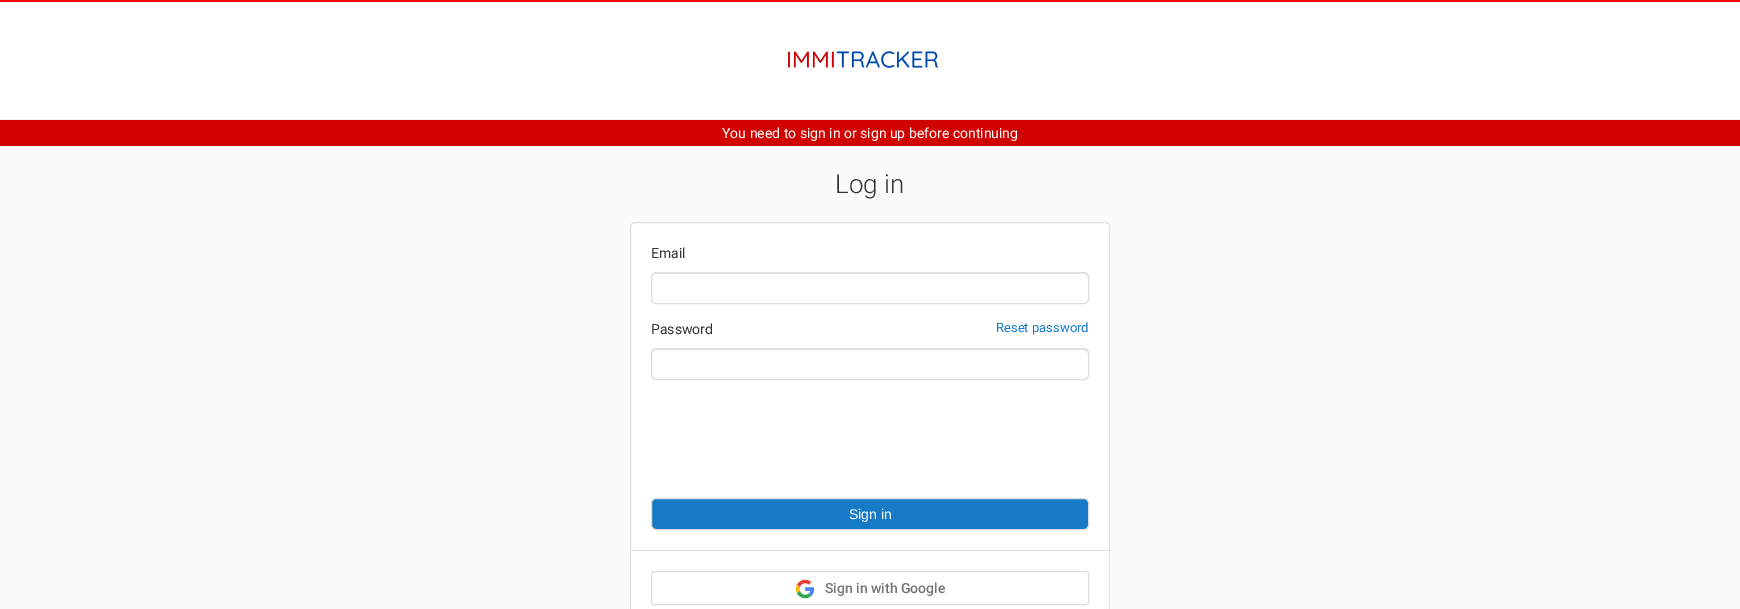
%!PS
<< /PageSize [1740 609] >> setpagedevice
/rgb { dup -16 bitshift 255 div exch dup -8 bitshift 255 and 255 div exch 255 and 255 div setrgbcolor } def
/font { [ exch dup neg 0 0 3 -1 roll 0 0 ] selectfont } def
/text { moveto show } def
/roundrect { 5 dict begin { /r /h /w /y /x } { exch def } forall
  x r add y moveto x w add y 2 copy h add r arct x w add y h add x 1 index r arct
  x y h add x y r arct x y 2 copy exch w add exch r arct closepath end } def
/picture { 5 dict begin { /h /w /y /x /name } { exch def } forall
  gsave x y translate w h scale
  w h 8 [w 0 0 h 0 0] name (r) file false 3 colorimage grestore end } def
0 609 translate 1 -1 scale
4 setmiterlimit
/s1 { /Roboto-Regular 14 font 16#FFFFFF rgb } def
/s2 { /Roboto-Light 26 font 16#333333 rgb } def
/s3 { /Roboto-Regular 14 font 16#333333 rgb } def
/s4 { /Roboto-Regular 13 font 16#167AC6 rgb } def
/s5 { /LiberationSans-Regular 14 font 16#FFFFFF rgb } def
/s6 { /Roboto-Medium 14 font 16#757575 rgb } def
16#FBFBFB rgb
0 0 1740 609 rectfill
16#FFFFFF rgb
0 2 1740 117 rectfill
16#FF0000 rgb
0 0 1740 2 rectfill
16#F1F1F1 rgb
0 119 1740 1 rectfill
(pic1.raw) 788 51 150 17 picture
16#D00300 rgb
0 120 1740 26 rectfill
s1
(You need to sign in or sign up before continuing) 722 138 text
s2
(Log in) 835 193 text
16#FFFFFF rgb
635 222.5 moveto 1105 222.5 lineto 1107.5 222.5 1109.5 224.5 1109.5 227 curveto 1109.5 550.5 lineto 630.5 550.5 lineto 630.5 227 lineto 630.5 224.5 632.5 222.5 635 222.5 curveto closepath gsave fill grestore
16#DFDFDF rgb
stroke
s3
(Email) 651 258 text
16#E6E6E6 rgb
656 274 moveto 1084 274 lineto 1086 274 1088 276 1088 278 curveto 1088 275 1087 273 1084 273 curveto 656 273 lineto 654 274 lineto 653 275 lineto 652 278 lineto 652 276 654 274 656 274 curveto closepath fill
16#DDDDDD rgb
651.5 272.5 437 31 4.5 roundrect stroke
s3
(Password) 651 334 text
s4
(Reset password) 996 332 text
16#E6E6E6 rgb
656 350 moveto 1084 350 lineto 1086 350 1088 352 1088 354 curveto 1088 351 1087 349 1084 349 curveto 656 349 lineto 654 350 lineto 653 351 lineto 652 354 lineto 652 352 654 350 656 350 curveto closepath fill
16#DDDDDD rgb
651.5 348.5 437 31 4.5 roundrect stroke
16#167AC6 rgb
651.5 498.5 437 31 4.5 roundrect gsave fill grestore
16#DDDDDD rgb
stroke
s5
(Sign in) 849 519 text
631 551 478 58 rectfill
16#DFDFDF rgb
630 551 moveto 1110 551 lineto 1110 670 lineto 1110 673 1108 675 1105 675 curveto 635 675 lineto 632 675 630 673 630 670 curveto closepath 631 551 moveto 1109 551 lineto 1109 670 lineto 1109 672 1107 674 1105 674 curveto 635 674 lineto 633 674 631 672 631 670 curveto closepath eofill
16#DDDDDD rgb
651.5 571.5 437 33 2.5 roundrect stroke
(pic2.raw) 795 579 20 20 picture
s6
(Sign in with Google) 825 593 text
showpage
